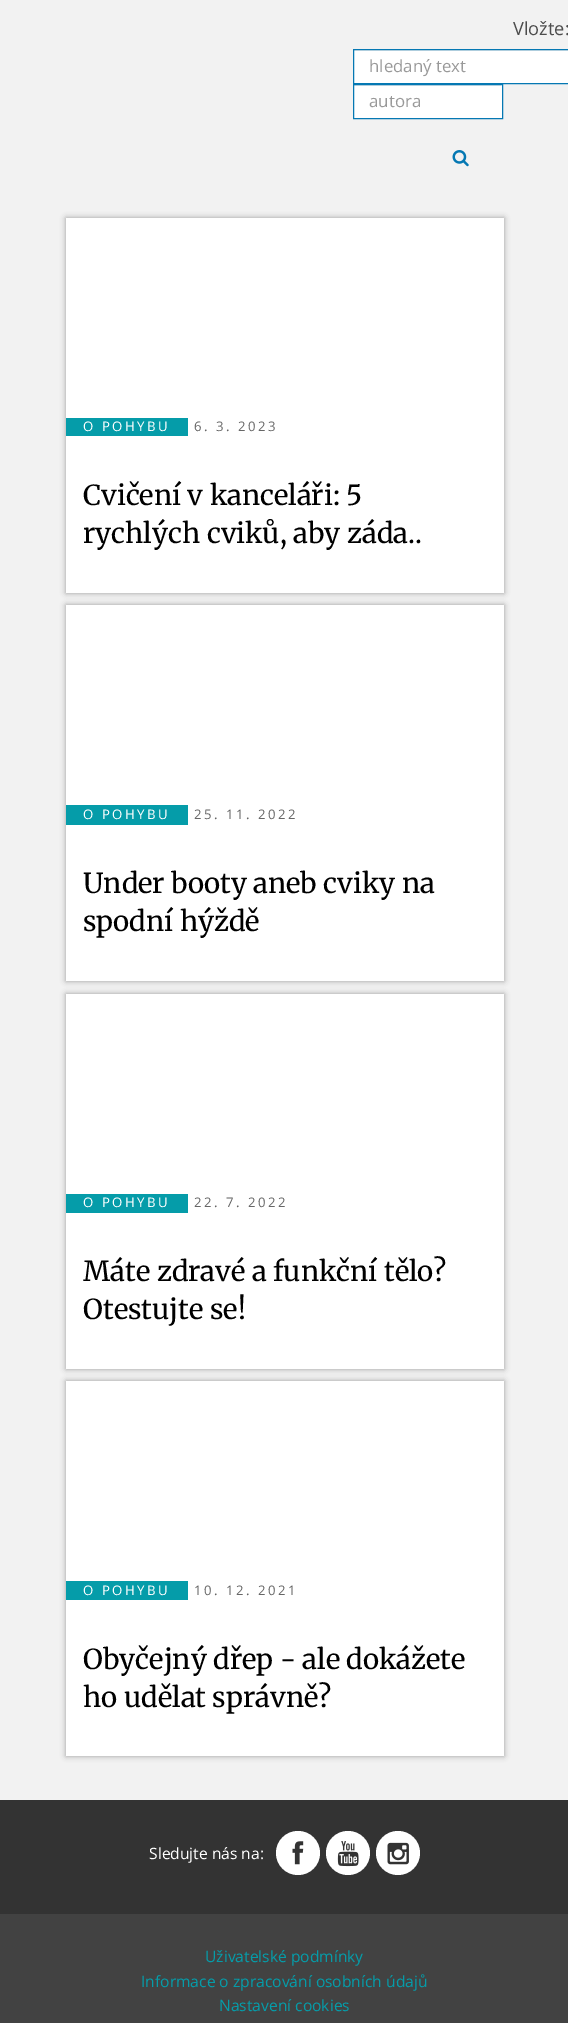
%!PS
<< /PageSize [568 2023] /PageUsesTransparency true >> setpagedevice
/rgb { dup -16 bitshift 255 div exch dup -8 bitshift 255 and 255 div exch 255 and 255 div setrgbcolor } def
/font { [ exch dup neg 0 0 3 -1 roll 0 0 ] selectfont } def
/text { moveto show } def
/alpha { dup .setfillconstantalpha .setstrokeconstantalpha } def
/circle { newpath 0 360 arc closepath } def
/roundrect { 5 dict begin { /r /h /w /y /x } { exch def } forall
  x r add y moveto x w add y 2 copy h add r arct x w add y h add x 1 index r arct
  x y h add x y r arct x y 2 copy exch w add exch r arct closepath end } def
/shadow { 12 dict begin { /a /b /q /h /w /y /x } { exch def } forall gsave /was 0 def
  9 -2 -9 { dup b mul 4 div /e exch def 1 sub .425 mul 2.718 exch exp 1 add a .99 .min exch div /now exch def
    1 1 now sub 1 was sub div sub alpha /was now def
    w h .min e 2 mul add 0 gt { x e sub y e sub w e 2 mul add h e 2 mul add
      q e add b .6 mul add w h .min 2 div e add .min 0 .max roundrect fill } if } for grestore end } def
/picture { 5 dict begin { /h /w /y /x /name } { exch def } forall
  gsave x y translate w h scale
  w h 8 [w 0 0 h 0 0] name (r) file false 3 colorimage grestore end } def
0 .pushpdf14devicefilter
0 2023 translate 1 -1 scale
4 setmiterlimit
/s1 { /OpenSans-Regular 19 font 16#4D4D4D rgb } def
/s2 { /OpenSans-Regular 17.5 font 16#999999 rgb } def
/s3 { /Merriweather-Regular 27.5 font 16#000000 rgb } def
/s4 { /OpenSans-Regular 16.25 font 16#FFFFFF rgb } def
/s5 { /OpenSans-Regular 16.25 font 16#059CA9 rgb } def
16#F2F2F2 rgb
0 0 568 2023 rectfill
s1
(Vložte:) 513 35 text
16#FFFFFF rgb
354 51 214 32 rectfill
16#ECECEC rgb
354 50 214 1 rectfill
16#0578B3 rgb
353.5 49.5 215 34 rectstroke
s2
(hledaný text) 369 72 text
16#FFFFFF rgb
354 85 148 33 rectfill
16#ECECEC rgb
354 85 147 1 rectfill
16#0578B3 rgb
353.5 84.5 149 34 rectstroke
s2
(autora) 369 107 text
(pic1.raw) 452 150 17 17 picture
66 218 438 375 0 3 1 shadow
16#FFFFFF rgb
66 218 438 375 rectfill
16#059CA9 rgb
66 418 122 18 rectfill
/OpenSans-Regular 13.75 font
16#FFFFFF rgb
83 431 moveto 2.5 0 (O POHYBU) ashow
16#666666 rgb
194 431 moveto 2.5 0 (6. 3. 2023) ashow
s3
(Cvičení v kanceláři: 5) 83 505 text
(rychlých cviků, aby záda..) 83 543 text
16#999999 rgb
66 605 438 376 0 3 1 shadow
16#FFFFFF rgb
66 605 438 376 rectfill
16#059CA9 rgb
66 805 122 20 rectfill
/OpenSans-Regular 13.75 font
16#FFFFFF rgb
83 819 moveto 2.5 0 (O POHYBU) ashow
16#666666 rgb
194 819 moveto 2.5 0 (25. 11. 2022) ashow
s3
(Under booty aneb cviky na) 83 893 text
(spodní hýždě) 83 931 text
16#999999 rgb
66 994 438 375 0 3 1 shadow
16#FFFFFF rgb
66 994 438 375 rectfill
16#059CA9 rgb
66 1194 122 19 rectfill
/OpenSans-Regular 13.75 font
16#FFFFFF rgb
83 1207 moveto 2.5 0 (O POHYBU) ashow
16#666666 rgb
194 1207 moveto 2.5 0 (22. 7. 2022) ashow
s3
(Máte zdravé a funkční tělo?) 83 1281 text
(Otestujte se!) 83 1319 text
16#999999 rgb
66 1381 438 375 0 3 1 shadow
16#FFFFFF rgb
66 1381 438 375 rectfill
16#059CA9 rgb
66 1581 122 19 rectfill
/OpenSans-Regular 13.75 font
16#FFFFFF rgb
83 1595 moveto 2.5 0 (O POHYBU) ashow
16#666666 rgb
194 1595 moveto 2.5 0 (10. 12. 2021) ashow
s3
(Obyčejný dřep - ale dokážete) 83 1669 text
(ho udělat správně?) 83 1707 text
16#333333 rgb
0 1800 568 114 rectfill
s4
(Sledujte nás na:) 149 1859 text
298 1853 22 circle fill
(pic2.raw) 292 1841 12 24 picture
348 1853 22 circle fill
(pic3.raw) 337 1841 22 26 picture
398 1853 22 circle fill
(pic4.raw) 387 1842 22 23 picture
16#424242 rgb
0 1914 568 109 rectfill
s5
(Uživatelské podmínky) 205 1962 text
(Informace o zpracování osobních údajů) 141 1987 text
(Nastavení cookies) 219 2011 text
.poppdf14devicefilter showpage
